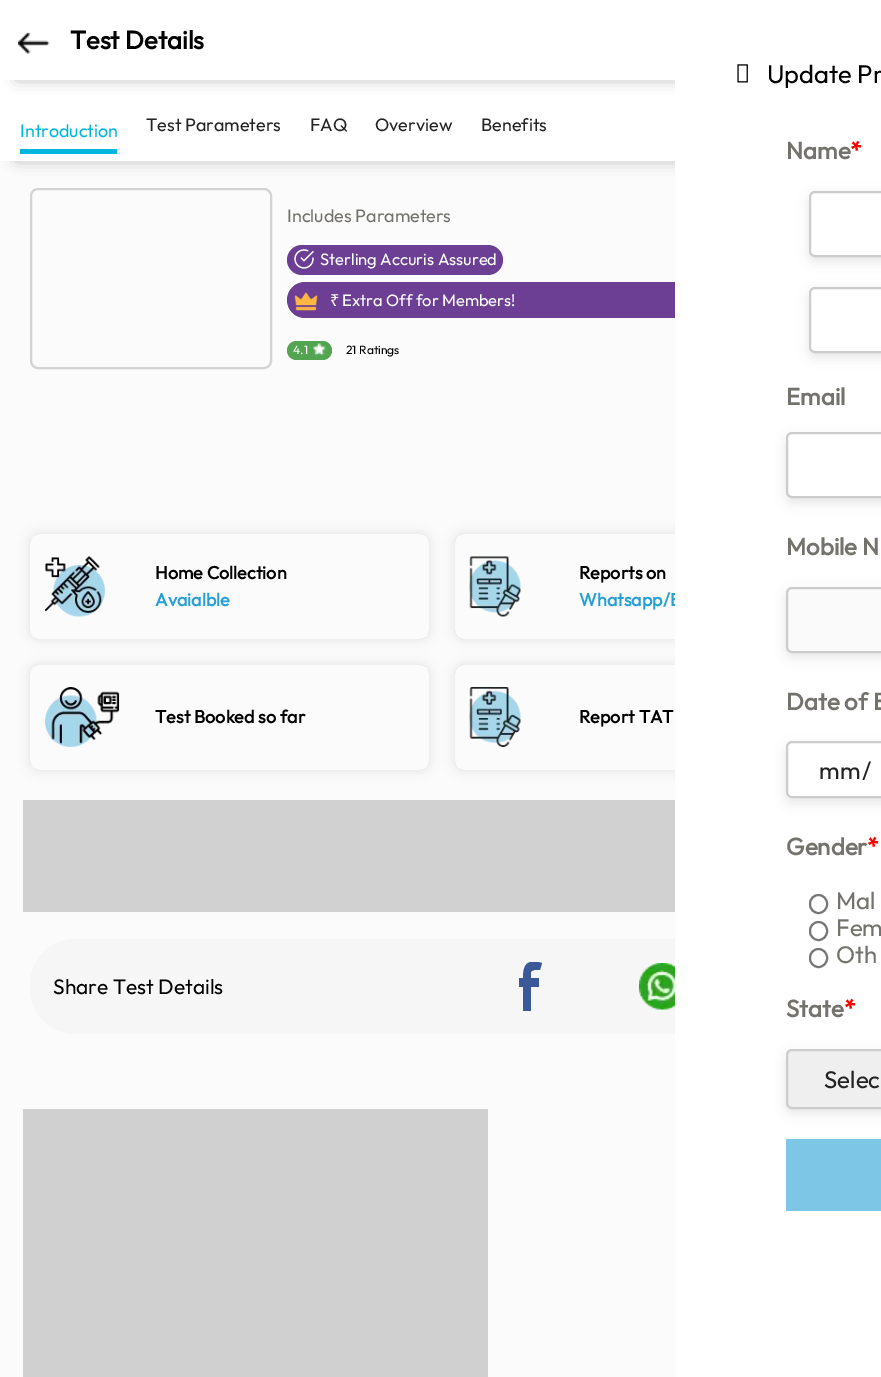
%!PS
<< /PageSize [881 1377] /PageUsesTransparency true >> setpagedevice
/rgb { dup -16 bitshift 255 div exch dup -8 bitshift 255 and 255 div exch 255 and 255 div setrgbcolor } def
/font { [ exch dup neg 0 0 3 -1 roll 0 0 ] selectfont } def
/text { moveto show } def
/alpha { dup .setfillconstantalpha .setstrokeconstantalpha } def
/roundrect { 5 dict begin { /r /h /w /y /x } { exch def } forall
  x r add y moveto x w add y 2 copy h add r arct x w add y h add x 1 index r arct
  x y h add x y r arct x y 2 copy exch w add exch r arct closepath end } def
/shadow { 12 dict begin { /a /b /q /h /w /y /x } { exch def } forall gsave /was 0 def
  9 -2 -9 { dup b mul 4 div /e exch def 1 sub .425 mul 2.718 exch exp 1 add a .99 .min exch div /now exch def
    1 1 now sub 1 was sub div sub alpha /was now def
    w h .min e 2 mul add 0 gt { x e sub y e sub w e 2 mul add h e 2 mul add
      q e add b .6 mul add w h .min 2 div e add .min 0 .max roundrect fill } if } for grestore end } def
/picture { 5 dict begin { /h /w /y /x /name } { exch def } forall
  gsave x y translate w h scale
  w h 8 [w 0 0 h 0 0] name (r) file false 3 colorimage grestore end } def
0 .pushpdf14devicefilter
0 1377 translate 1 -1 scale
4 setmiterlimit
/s1 { /Outfit-Bold 25.5 font 16#000000 rgb } def
/s2 { /Outfit-Regular 18 font 16#00B6DE rgb } def
/s3 { /Outfit-Regular 18 font 16#232323 rgb } def
/s4 { /Outfit-Regular 18 font 16#73726C rgb } def
/s5 { /Outfit-Regular 16.5 font 16#FFFFFF rgb } def
/s6 { /NotoSans-Regular 16.5 font 16#FFFFFF rgb } def
/s7 { /Outfit-Regular 12 font 16#FFFFFF rgb } def
/s8 { /Outfit-Regular 12 font 16#000000 rgb } def
/s9 { /Outfit-Bold 18 font 16#000000 rgb } def
/s10 { /Outfit-Bold 18 font 16#26A0D4 rgb } def
/s11 { /Outfit-Regular 21 font 16#000000 rgb } def
/s12 { /Outfit-Regular 25.5 font 16#000000 rgb } def
/s13 { /Outfit-Bold 24 font 16#73726C rgb } def
/s14 { /Outfit-Bold 24 font 16#FF0000 rgb } def
/s15 { /Outfit-Regular 24 font 16#232323 rgb } def
/s16 { /Outfit-Regular 24 font 16#73726C rgb } def
16#FBFBFB rgb
0 0 881 1377 rectfill
16#A5A5A5 rgb
17 32 849 127 0 7.5 1 shadow
16#FFFFFF rgb
0 80 675 81 rectfill
16#A5A5A5 rgb
17 32 849 46 0 7.5 1 shadow
16#FFFFFF rgb
0 0 675 80 rectfill
(pic1.raw) 18 32 32 22 picture
s1
(Test Details) 70 49 text
s2
(Introduction) 20 137 text
20 149 97 5 rectfill
s3
(Test Parameters) 146 131 text
(FAQ) 310 131 text
(Overview) 375 131 text
(Benefits) 481 131 text
16#D3D3D3 rgb
2 setlinewidth
31 189 240 179 7 roundrect stroke
s4
(Includes Parameters) 287 222 text
16#6C3F94 rgb
287 245 216 30 15 roundrect fill
(pic2.raw) 294 249 20 20 picture
s5
(Sterling Accuris Assured) 320 265 text
16#6C3F94 rgb
287 282 565 36 18 roundrect fill
(pic3.raw) 294 292 24 19 picture
s6
(₹) 330 306 text
s5
(Extra Off for Members!) 342 306 text
16#53A451 rgb
287 341 45 19 9.5 roundrect fill
s7
(4.1) 293 354 text
(pic4.raw) 313 343 13 13 picture
s8
(21 Ratings) 346 354 text
gsave
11 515 moveto 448 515 lineto 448 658 lineto 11 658 lineto closepath 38 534 moveto 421 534 lineto 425.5 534 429 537.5 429 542 curveto 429 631 lineto 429 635.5 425.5 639 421 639 curveto 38 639 lineto 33.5 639 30 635.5 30 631 curveto 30 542 lineto 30 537.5 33.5 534 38 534 curveto closepath eoclip newpath
30 534 399 105 8 6 0.1 shadow
grestore
(pic5.raw) 45 556 60 61 picture
s9
(Home Collection) 155 579 text
s10
(Avaialble) 155 606 text
gsave
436 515 moveto 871 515 lineto 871 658 lineto 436 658 lineto closepath 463 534 moveto 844 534 lineto 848.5 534 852 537.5 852 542 curveto 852 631 lineto 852 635.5 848.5 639 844 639 curveto 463 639 lineto 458.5 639 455 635.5 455 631 curveto 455 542 lineto 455 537.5 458.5 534 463 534 curveto closepath eoclip newpath
16#000000 rgb
455 534 397 105 8 6 0.1 shadow
grestore
(pic6.raw) 469 556 52 61 picture
s9
(Reports on) 579 579 text
s10
(Whatsapp/E) 579 606 text
gsave
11 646 moveto 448 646 lineto 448 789 lineto 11 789 lineto closepath 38 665 moveto 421 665 lineto 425.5 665 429 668.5 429 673 curveto 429 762 lineto 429 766.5 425.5 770 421 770 curveto 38 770 lineto 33.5 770 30 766.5 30 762 curveto 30 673 lineto 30 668.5 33.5 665 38 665 curveto closepath eoclip newpath
16#000000 rgb
30 665 399 105 8 6 0.1 shadow
grestore
(pic7.raw) 45 687 75 60 picture
s9
(Test Booked so far) 155 723 text
gsave
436 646 moveto 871 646 lineto 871 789 lineto 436 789 lineto closepath 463 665 moveto 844 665 lineto 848.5 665 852 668.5 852 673 curveto 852 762 lineto 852 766.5 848.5 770 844 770 curveto 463 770 lineto 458.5 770 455 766.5 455 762 curveto 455 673 lineto 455 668.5 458.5 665 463 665 curveto closepath eoclip newpath
455 665 397 105 8 6 0.1 shadow
grestore
(pic8.raw) 469 687 52 60 picture
(Report TAT) 579 723 text
16#D1D1D1 rgb
23 800 652 112 rectfill
16#F6F6F6 rgb
30 939 822 95 45 roundrect fill
s11
(Share Test Details) 53 994 text
gsave
519 962 23 49 rectclip
16#3B5998 rgb
540 970 moveto 538 970 533 969 531 972 curveto 531 978 lineto 539 978 lineto 539 987 lineto 531 987 lineto 531 1011 lineto 523 1011 lineto 523 987 lineto 519 987 lineto 519 978 lineto 523 978 lineto 523 964 527 959 542 963 curveto closepath fill
grestore
(pic9.raw) 639 963 36 47 picture
16#D0D0D0 rgb
23 1109 465 268 rectfill
16#FFFFFF rgb
675 0 206 1377 rectfill
(pic10.raw) 737 64 11 19 picture
s12
(Update Pr) 767 83 text
s13
(Name) 786 159 text
s14
(*) 850 159 text
16#000000 rgb
809 195 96 66 6 6 0.1 shadow
16#FFFFFF rgb
810 192 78 64 5 roundrect gsave fill grestore
16#CCCCCC rgb
stroke
16#000000 rgb
809 291 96 66 6 6 0.1 shadow
16#FFFFFF rgb
810 288 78 64 5 roundrect gsave fill grestore
16#CCCCCC rgb
stroke
s13
(Email) 786 405 text
16#000000 rgb
786 437 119 66 6 6 0.1 shadow
16#FFFFFF rgb
787 433 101 64 5 roundrect gsave fill grestore
16#CCCCCC rgb
stroke
s13
(Mobile N) 786 555 text
gsave
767 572 moveto 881 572 lineto 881 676 lineto 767 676 lineto closepath 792 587 moveto 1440 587 lineto 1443.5 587 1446 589.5 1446 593 curveto 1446 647 lineto 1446 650.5 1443.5 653 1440 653 curveto 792 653 lineto 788.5 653 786 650.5 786 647 curveto 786 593 lineto 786 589.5 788.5 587 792 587 curveto closepath eoclip newpath
16#000000 rgb
786 591 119 66 6 6 0.1 shadow
grestore
0.3 alpha
16#EFEFEF rgb
787 588 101 64 5 roundrect fill
1 alpha
16#CCCCCC rgb
787 588 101 64 5 roundrect stroke
s13
(Date of B) 786 710 text
16#000000 rgb
786 746 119 57 6 6 0.1 shadow
16#FFFFFF rgb
787 742 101 55 5 roundrect gsave fill grestore
16#CCCCCC rgb
stroke
s15
(mm) 819 779 text
(/) 862 779 text
s13
(Gender) 786 855 text
s14
(*) 867 855 text
16#767676 rgb
810 895 17 18 8.5 roundrect stroke
s16
(Mal) 836 909 text
16#767676 rgb
810 922 17 18 8.5 roundrect stroke
s16
(Fem) 836 936 text
16#767676 rgb
810 949 17 18 8.5 roundrect stroke
s16
(Oth) 836 963 text
s13
(State) 786 1017 text
s14
(*) 844 1017 text
16#000000 rgb
786 1053 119 60 6 6 0.1 shadow
16#EFEFEF rgb
787 1050 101 58 5 roundrect gsave fill grestore
16#CCCCCC rgb
stroke
s15
(Selec) 824 1088 text
16#7DC6E5 rgb
786 1139 95 72 rectfill
.poppdf14devicefilter showpage
